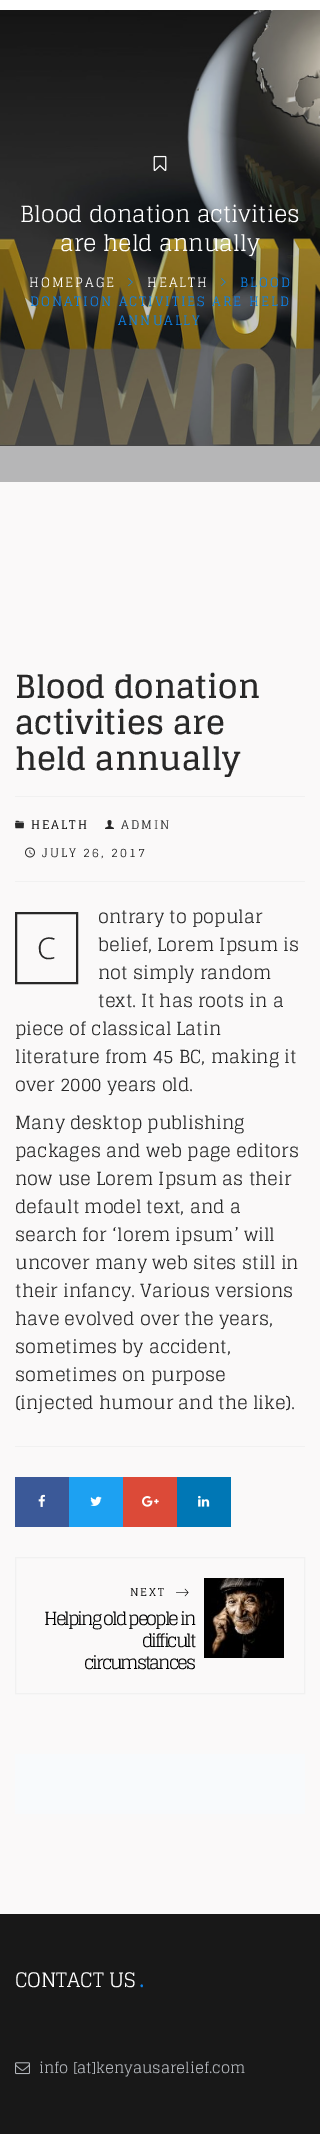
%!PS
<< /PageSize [320 2134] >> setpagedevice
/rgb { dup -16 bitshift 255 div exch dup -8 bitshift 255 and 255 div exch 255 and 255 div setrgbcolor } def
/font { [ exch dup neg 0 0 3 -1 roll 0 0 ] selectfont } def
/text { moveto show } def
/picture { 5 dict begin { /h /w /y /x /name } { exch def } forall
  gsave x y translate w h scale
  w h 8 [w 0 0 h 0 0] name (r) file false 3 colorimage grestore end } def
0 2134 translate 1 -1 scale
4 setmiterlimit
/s1 { /Glegoo-Regular 22.4 font 16#FFFFFF rgb } def
/s2 { /Glegoo-Bold 32 font 16#282828 rgb } def
/s3 { /Glegoo-Regular 18 font 16#282828 rgb } def
/s4 { /NotoSans-Light 30 font 16#282828 rgb } def
/s5 { /Glegoo-Regular 20 font 16#FFFFFF rgb } def
/s6 { /Glegoo-Regular 25 font 16#0C84ED rgb } def
/s7 { /Glegoo-Regular 15 font 16#B2B6BB rgb } def
16#FAF9F9 rgb
0 0 320 2134 rectfill
16#FFFFFF rgb
0 0 320 10 rectfill
16#B6B6B7 rgb
0 446 320 36 rectfill
(pic1.raw) 0 10 320 436 picture
(pic2.raw) 153 155 14 16 picture
s1
(Blood donation activities) 20 222 text
(are held annually) 60 251 text
/Glegoo-Regular 13 font
29 287 moveto 2 0 (HOMEPAGE) ashow
(pic3.raw) 128 278 5 9 picture
147 287 moveto 2 0 (HEALTH) ashow
(pic4.raw) 221 278 5 9 picture
16#0C84ED rgb
240 287 moveto 2 0 (BLOOD) ashow
30 306 moveto 2 0 (DONATION ACTIVITIES ARE HELD) ashow
118 325 moveto 2 0 (ANNUALLY) ashow
s2
(Blood donation) 15 698 text
(activities are) 15 734 text
(held annually) 15 770 text
16#F1F1F1 rgb
15 796 290 1 rectfill
15 881 290 1 rectfill
(pic5.raw) 15 820 9 9 picture
/Glegoo-Regular 12 font
16#000000 rgb
31 829 moveto 2 0 (HEALTH) ashow
(pic6.raw) 105 820 9 9 picture
16#282828 rgb
121 829 moveto 2 0 (ADMIN) ashow
(pic7.raw) 25 847 10 11 picture
42 857 moveto 2 0 (JULY 26, 2017) ashow
s3
(ontrary to popular) 98 923 text
2 setlinewidth
16 913 61 70 rectstroke
s4
(C) 37 959 text
s3
(belief, Lorem Ipsum is) 98 951 text
(not simply random) 98 979 text
(text. It has roots in a) 98 1007 text
(piece of classical Latin) 15 1035 text
(literature from 45 BC, making it) 15 1063 text
(over 2000 years old.) 15 1091 text
(Many desktop publishing) 15 1129 text
(packages and web page editors) 15 1157 text
(now use Lorem Ipsum as their) 15 1185 text
(default model text, and a) 15 1213 text
(search for ‘lorem ipsum’ will) 15 1241 text
(uncover many web sites still in) 15 1269 text
(their infancy. Various versions) 15 1297 text
(have evolved over the years,) 15 1325 text
(sometimes by accident,) 15 1353 text
(sometimes on purpose) 15 1381 text
(\(injected humour and the like\).) 15 1409 text
16#F1F1F1 rgb
15 1446 290 1 rectfill
16#3B5998 rgb
15 1477 54 50 rectfill
(pic8.raw) 38 1494 7 13 picture
16#1DA1F2 rgb
69 1477 54 50 rectfill
(pic9.raw) 90 1496 12 10 picture
16#DC4A38 rgb
123 1477 54 50 rectfill
(pic10.raw) 142 1496 17 11 picture
16#0077B5 rgb
177 1477 54 50 rectfill
(pic11.raw) 198 1495 12 12 picture
16#F1F1F1 rgb
1 setlinewidth
15.5 1557.5 289 136 rectstroke
/Glegoo-Regular 11 font
16#000000 rgb
130 1596 moveto 2 0 (NEXT) ashow
(pic12.raw) 176 1588 13 9 picture
/Glegoo-Regular 18 font
44 1625 moveto -2 0 (Helping old people in) ashow
142 1647 moveto -2 0 (difficult) ashow
84 1669 moveto -2 0 (circumstances) ashow
(pic13.raw) 204 1578 80 80 picture
16#F8FAFC rgb
15 1754 290 60 rectfill
16#181818 rgb
0 1914 320 220 rectfill
s5
(CONTACT US) 15 1987 text
s6
(.) 139 1987 text
(pic14.raw) 15 2062 15 13 picture
s7
(info [at]kenyausarelief.com) 39 2073 text
showpage
